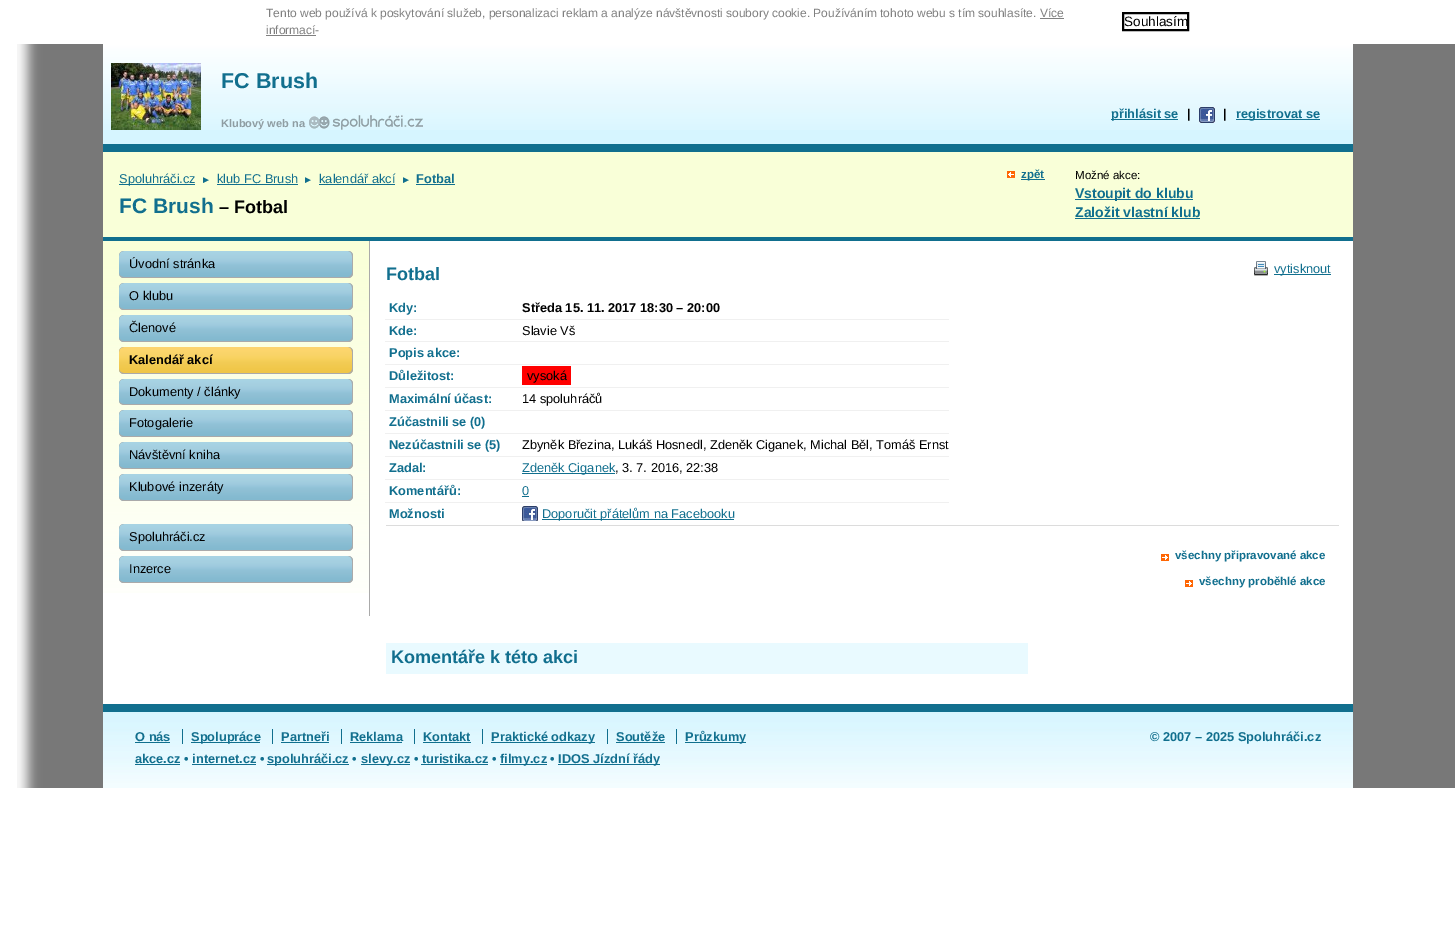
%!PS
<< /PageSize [1455 941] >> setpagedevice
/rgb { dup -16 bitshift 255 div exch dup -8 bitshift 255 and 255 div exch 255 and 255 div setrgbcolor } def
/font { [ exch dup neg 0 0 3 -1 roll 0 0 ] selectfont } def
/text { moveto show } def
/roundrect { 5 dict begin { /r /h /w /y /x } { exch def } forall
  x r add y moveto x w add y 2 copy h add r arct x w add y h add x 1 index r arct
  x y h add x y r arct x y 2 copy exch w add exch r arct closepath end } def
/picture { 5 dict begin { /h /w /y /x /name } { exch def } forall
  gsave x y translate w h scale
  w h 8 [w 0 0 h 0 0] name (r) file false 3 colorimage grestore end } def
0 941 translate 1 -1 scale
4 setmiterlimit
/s1 { /LiberationSans-Regular 12 font 16#808080 rgb } def
/s2 { /LiberationSans-Regular 13.5 font 16#000000 rgb } def
/s3 { /LiberationSans-Bold 21.5 font 16#116F8E rgb } def
/s4 { /LiberationSans-Bold 11 font 16#8F9DA2 rgb } def
/s5 { /LiberationSans-Bold 12.8 font 16#116F8E rgb } def
/s6 { /LiberationSans-Bold 12.8 font 16#000000 rgb } def
/s7 { /LiberationSans-Regular 12.8 font 16#116F8E rgb } def
/s8 { /LiberationSans-Regular 10 font 16#116F8E rgb } def
/s9 { /LiberationSans-Bold 21 font 16#116F8E rgb } def
/s10 { /LiberationSans-Bold 18 font 16#000000 rgb } def
/s11 { /LiberationSans-Bold 11.5 font 16#116F8E rgb } def
/s12 { /LiberationSans-Regular 11.5 font 16#000000 rgb } def
/s13 { /LiberationSans-Bold 14 font 16#116F8E rgb } def
/s14 { /LiberationSans-Regular 12.8 font 16#000000 rgb } def
/s15 { /LiberationSans-Bold 18 font 16#116F8E rgb } def
16#FFFFFF rgb
0 0 1455 941 rectfill
s1
(Tento web používá k poskytování služeb, personalizaci reklam a analýze návštěvnosti soubory cookie. Používáním tohoto webu s tím souhlasíte. Více) 266 17 text
(informací-) 266 34 text
1040 18 24 1 rectfill
266 35 50 1 rectfill
16#000000 rgb
2 setlinewidth
1123 13 65 17 rectstroke
s2
(Souhlasím) 1124 26 text
(pic1.raw) 17 44 1438 744 picture
16#D6F5FF rgb
103 130 1250 14 rectfill
(pic2.raw) 103 44 1250 86 picture
16#116F8E rgb
103 144 1250 8 rectfill
(pic3.raw) 111 63 90 67 picture
s3
(FC Brush) 221 88 text
s4
(Klubový web na) 221 127 text
(pic4.raw) 309 115 114 15 picture
16#116F8E rgb
1111 119 67 1 rectfill
s5
(přihlásit se) 1111 118 text
s6
(|) 1187 118 text
(pic5.raw) 1199 107 16 16 picture
(|) 1223 118 text
16#116F8E rgb
1236 119 84 1 rectfill
(registrovat se) 1236 118 text
16#F9FFD8 rgb
103 152 1250 85 rectfill
16#116F8E rgb
103 237 1250 4 rectfill
119 184 76 1 rectfill
s7
(Spoluhráči.cz) 119 183 text
s8
(►) 201 183 text
s7
(klub FC Brush) 217 183 text
217 184 81 1 rectfill
s8
(►) 303 183 text
s7
(kalendář akcí) 319 183 text
319 184 76 1 rectfill
s8
(►) 401 183 text
s5
(Fotbal) 416 183 text
416 184 39 1 rectfill
s9
(FC Brush) 119 213 text
s10
(– Fotbal) 219 213 text
(pic6.raw) 1007 171 8 7 picture
16#116F8E rgb
1021 179 24 1 rectfill
s11
(zpět) 1021 178 text
s12
(Možné akce:) 1075 179 text
16#116F8E rgb
1075 199 118 1 rectfill
s13
(Vstoupit do klubu) 1075 198 text
(Založit vlastní klub) 1075 217 text
1075 218 125 1 rectfill
16#FFFFFF rgb
103 241 1250 463 rectfill
(pic7.raw) 103 241 266 352 picture
16#AAAAAA rgb
369 241 1 375 rectfill
16#83B9CF rgb
119 251 234 27 5 roundrect fill
(pic8.raw) 119 251 234 25 picture
16#AAAAAA rgb
124 251 moveto 348 251 lineto 351 251 353 253 353 256 curveto 353 273 lineto 353 276 351 278 348 278 curveto 124 278 lineto 121 278 119 276 119 273 curveto 119 256 lineto 119 253 121 251 124 251 curveto closepath 124 251 moveto 348 251 lineto 350 251 352 253 352 256 curveto 352 273 lineto 352 275 350 277 348 277 curveto 124 277 lineto 121 277 119 275 119 273 curveto 119 256 lineto 119 253 121 251 124 251 curveto closepath eofill
s14
(Úvodní stránka) 129 268 text
16#83B9CF rgb
119 283 234 27 5 roundrect fill
(pic9.raw) 119 283 234 25 picture
16#AAAAAA rgb
124 283 moveto 348 283 lineto 351 283 353 285 353 288 curveto 353 305 lineto 353 308 351 310 348 310 curveto 124 310 lineto 121 310 119 308 119 305 curveto 119 288 lineto 119 285 121 283 124 283 curveto closepath 124 283 moveto 348 283 lineto 350 283 352 285 352 288 curveto 352 305 lineto 352 307 350 309 348 309 curveto 124 309 lineto 121 309 119 307 119 305 curveto 119 288 lineto 119 285 121 283 124 283 curveto closepath eofill
s14
(O klubu) 129 300 text
16#83B9CF rgb
119 315 234 27 5 roundrect fill
(pic10.raw) 119 315 234 25 picture
16#AAAAAA rgb
124 315 moveto 348 315 lineto 351 315 353 317 353 320 curveto 353 337 lineto 353 340 351 342 348 342 curveto 124 342 lineto 121 342 119 340 119 337 curveto 119 320 lineto 119 317 121 315 124 315 curveto closepath 124 315 moveto 348 315 lineto 350 315 352 317 352 320 curveto 352 337 lineto 352 339 350 341 348 341 curveto 124 341 lineto 121 341 119 339 119 337 curveto 119 320 lineto 119 317 121 315 124 315 curveto closepath eofill
s14
(Členové) 129 332 text
16#EFC647 rgb
119 347 234 27 5 roundrect fill
(pic11.raw) 119 347 234 25 picture
16#AAAAAA rgb
124 347 moveto 348 347 lineto 351 347 353 349 353 352 curveto 353 369 lineto 353 372 351 374 348 374 curveto 124 374 lineto 121 374 119 372 119 369 curveto 119 352 lineto 119 349 121 347 124 347 curveto closepath 124 347 moveto 348 347 lineto 350 347 352 349 352 352 curveto 352 369 lineto 352 371 350 373 348 373 curveto 124 373 lineto 121 373 119 371 119 369 curveto 119 352 lineto 119 349 121 347 124 347 curveto closepath eofill
s6
(Kalendář akcí) 129 364 text
(pic12.raw) 119 379 234 25 picture
16#AAAAAA rgb
124 379 moveto 348 379 lineto 351 379 353 381 353 384 curveto 353 400 lineto 353 403 351 405 348 405 curveto 124 405 lineto 121 405 119 403 119 400 curveto 119 384 lineto 119 381 121 379 124 379 curveto closepath 124 379 moveto 348 379 lineto 350 379 352 381 352 384 curveto 352 400 lineto 352 402 350 404 348 404 curveto 124 404 lineto 121 404 119 402 119 400 curveto 119 384 lineto 119 381 121 379 124 379 curveto closepath eofill
s14
(Dokumenty / články) 129 396 text
16#83B9CF rgb
119 410 234 27 5 roundrect fill
(pic13.raw) 119 410 234 25 picture
16#AAAAAA rgb
124 410 moveto 348 410 lineto 351 410 353 412 353 415 curveto 353 432 lineto 353 435 351 437 348 437 curveto 124 437 lineto 121 437 119 435 119 432 curveto 119 415 lineto 119 412 121 410 124 410 curveto closepath 124 410 moveto 348 410 lineto 350 410 352 412 352 415 curveto 352 432 lineto 352 434 350 436 348 436 curveto 124 436 lineto 121 436 119 434 119 432 curveto 119 415 lineto 119 412 121 410 124 410 curveto closepath eofill
s14
(Fotogalerie) 129 427 text
16#83B9CF rgb
119 442 234 27 5 roundrect fill
(pic14.raw) 119 442 234 25 picture
16#AAAAAA rgb
124 442 moveto 348 442 lineto 351 442 353 444 353 447 curveto 353 464 lineto 353 467 351 469 348 469 curveto 124 469 lineto 121 469 119 467 119 464 curveto 119 447 lineto 119 444 121 442 124 442 curveto closepath 124 442 moveto 348 442 lineto 350 442 352 444 352 447 curveto 352 464 lineto 352 466 350 468 348 468 curveto 124 468 lineto 121 468 119 466 119 464 curveto 119 447 lineto 119 444 121 442 124 442 curveto closepath eofill
s14
(Návštěvní kniha) 129 459 text
16#83B9CF rgb
119 474 234 27 5 roundrect fill
(pic15.raw) 119 474 234 25 picture
16#AAAAAA rgb
124 474 moveto 348 474 lineto 351 474 353 476 353 479 curveto 353 496 lineto 353 499 351 501 348 501 curveto 124 501 lineto 121 501 119 499 119 496 curveto 119 479 lineto 119 476 121 474 124 474 curveto closepath 124 474 moveto 348 474 lineto 350 474 352 476 352 479 curveto 352 496 lineto 352 498 350 500 348 500 curveto 124 500 lineto 121 500 119 498 119 496 curveto 119 479 lineto 119 476 121 474 124 474 curveto closepath eofill
s14
(Klubové inzeráty) 129 491 text
16#83B9CF rgb
119 524 234 27 5 roundrect fill
(pic16.raw) 119 524 234 25 picture
16#AAAAAA rgb
124 524 moveto 348 524 lineto 351 524 353 526 353 529 curveto 353 546 lineto 353 549 351 551 348 551 curveto 124 551 lineto 121 551 119 549 119 546 curveto 119 529 lineto 119 526 121 524 124 524 curveto closepath 124 524 moveto 348 524 lineto 350 524 352 526 352 529 curveto 352 546 lineto 352 548 350 550 348 550 curveto 124 550 lineto 121 550 119 548 119 546 curveto 119 529 lineto 119 526 121 524 124 524 curveto closepath eofill
s14
(Spoluhráči.cz) 129 541 text
16#83B9CF rgb
119 556 234 27 5 roundrect fill
(pic17.raw) 119 556 234 25 picture
16#AAAAAA rgb
124 556 moveto 348 556 lineto 351 556 353 558 353 561 curveto 353 578 lineto 353 581 351 583 348 583 curveto 124 583 lineto 121 583 119 581 119 578 curveto 119 561 lineto 119 558 121 556 124 556 curveto closepath 124 556 moveto 348 556 lineto 350 556 352 558 352 561 curveto 352 578 lineto 352 580 350 582 348 582 curveto 124 582 lineto 121 582 119 580 119 578 curveto 119 561 lineto 119 558 121 556 124 556 curveto closepath eofill
s14
(Inzerce) 129 573 text
16#DCDCDC rgb
386 525 953 1 rectfill
s15
(Fotbal) 386 280 text
(pic18.raw) 1254 261 14 15 picture
1274 274 57 1 rectfill
s7
(vytisknout) 1274 273 text
s5
(Kdy:) 389 312 text
s6
(Středa 15. 11. 2017 18:30 – 20:00) 522 312 text
s5
(Kde:) 389 335 text
16#F0F0F0 rgb
385 319 564 1 rectfill
s14
(Slavie Vš) 522 335 text
16#F0F0F0 rgb
385 341 564 1 rectfill
s5
(Popis akce:) 389 357 text
(Důležitost:) 389 380 text
16#F0F0F0 rgb
385 364 564 1 rectfill
16#FF0000 rgb
522 366 49 19 rectfill
s14
(vysoká) 527 380 text
s5
(Maximální účast:) 389 403 text
16#F0F0F0 rgb
385 387 564 1 rectfill
s14
(14 spoluhráčů) 522 403 text
16#F0F0F0 rgb
385 410 564 1 rectfill
s5
(Zúčastnili se \(0\)) 389 426 text
(Nezúčastnili se \(5\)) 389 449 text
16#F0F0F0 rgb
385 433 564 1 rectfill
s14
(Zbyněk Březina, Lukáš Hosnedl, Zdeněk Ciganek, Michal Běl, Tomáš Ernst) 522 449 text
s5
(Zadal:) 389 472 text
16#F0F0F0 rgb
385 456 564 1 rectfill
16#116F8E rgb
522 473 93 1 rectfill
s7
(Zdeněk Ciganek) 522 472 text
s14
(, 3. 7. 2016, 22:38) 615 472 text
s5
(Komentářů:) 389 495 text
16#F0F0F0 rgb
385 479 564 1 rectfill
s7
(0) 522 495 text
522 496 7 1 rectfill
s5
(Možnosti) 389 518 text
16#F0F0F0 rgb
385 502 564 1 rectfill
(pic19.raw) 522 506 16 15 picture
16#116F8E rgb
542 519 192 1 rectfill
s7
(Doporučit přátelům na Facebooku) 542 518 text
(pic20.raw) 1161 554 8 7 picture
s11
(všechny připravované akce) 1175 559 text
(pic20.raw) 1185 580 8 7 picture
(všechny proběhlé akce) 1199 585 text
16#E9FAFF rgb
386 643 642 31 rectfill
s15
(Komentáře k této akci) 391 663 text
(pic21.raw) 103 712 1250 76 picture
103 704 1250 8 rectfill
s5
(O nás) 135 741 text
135 742 35 1 rectfill
191 742 69 1 rectfill
(Spolupráce) 191 741 text
182 729 1 15 rectfill
(Partneři) 281 741 text
272 729 1 15 rectfill
281 742 48 1 rectfill
(Reklama) 350 741 text
341 729 1 15 rectfill
350 742 52 1 rectfill
(Kontakt) 423 741 text
414 729 1 15 rectfill
423 742 48 1 rectfill
491 742 104 1 rectfill
(Praktické odkazy) 491 741 text
482 729 1 15 rectfill
(Soutěže) 616 741 text
607 729 1 15 rectfill
616 742 49 1 rectfill
685 742 61 1 rectfill
(Průzkumy) 685 741 text
676 729 1 15 rectfill
(© 2007 – 2025 Spoluhráči.cz) 1150 741 text
(akce.cz • internet.cz •) 135 763 text
135 764 45 1 rectfill
267 764 82 1 rectfill
(spoluhráči.cz •) 267 763 text
361 764 49 1 rectfill
(slevy.cz • turistika.cz •) 361 763 text
500 764 47 1 rectfill
(filmy.cz •) 500 763 text
558 764 102 1 rectfill
(IDOS Jízdní řády) 558 763 text
192 764 64 1 rectfill
421 764 67 1 rectfill
showpage
